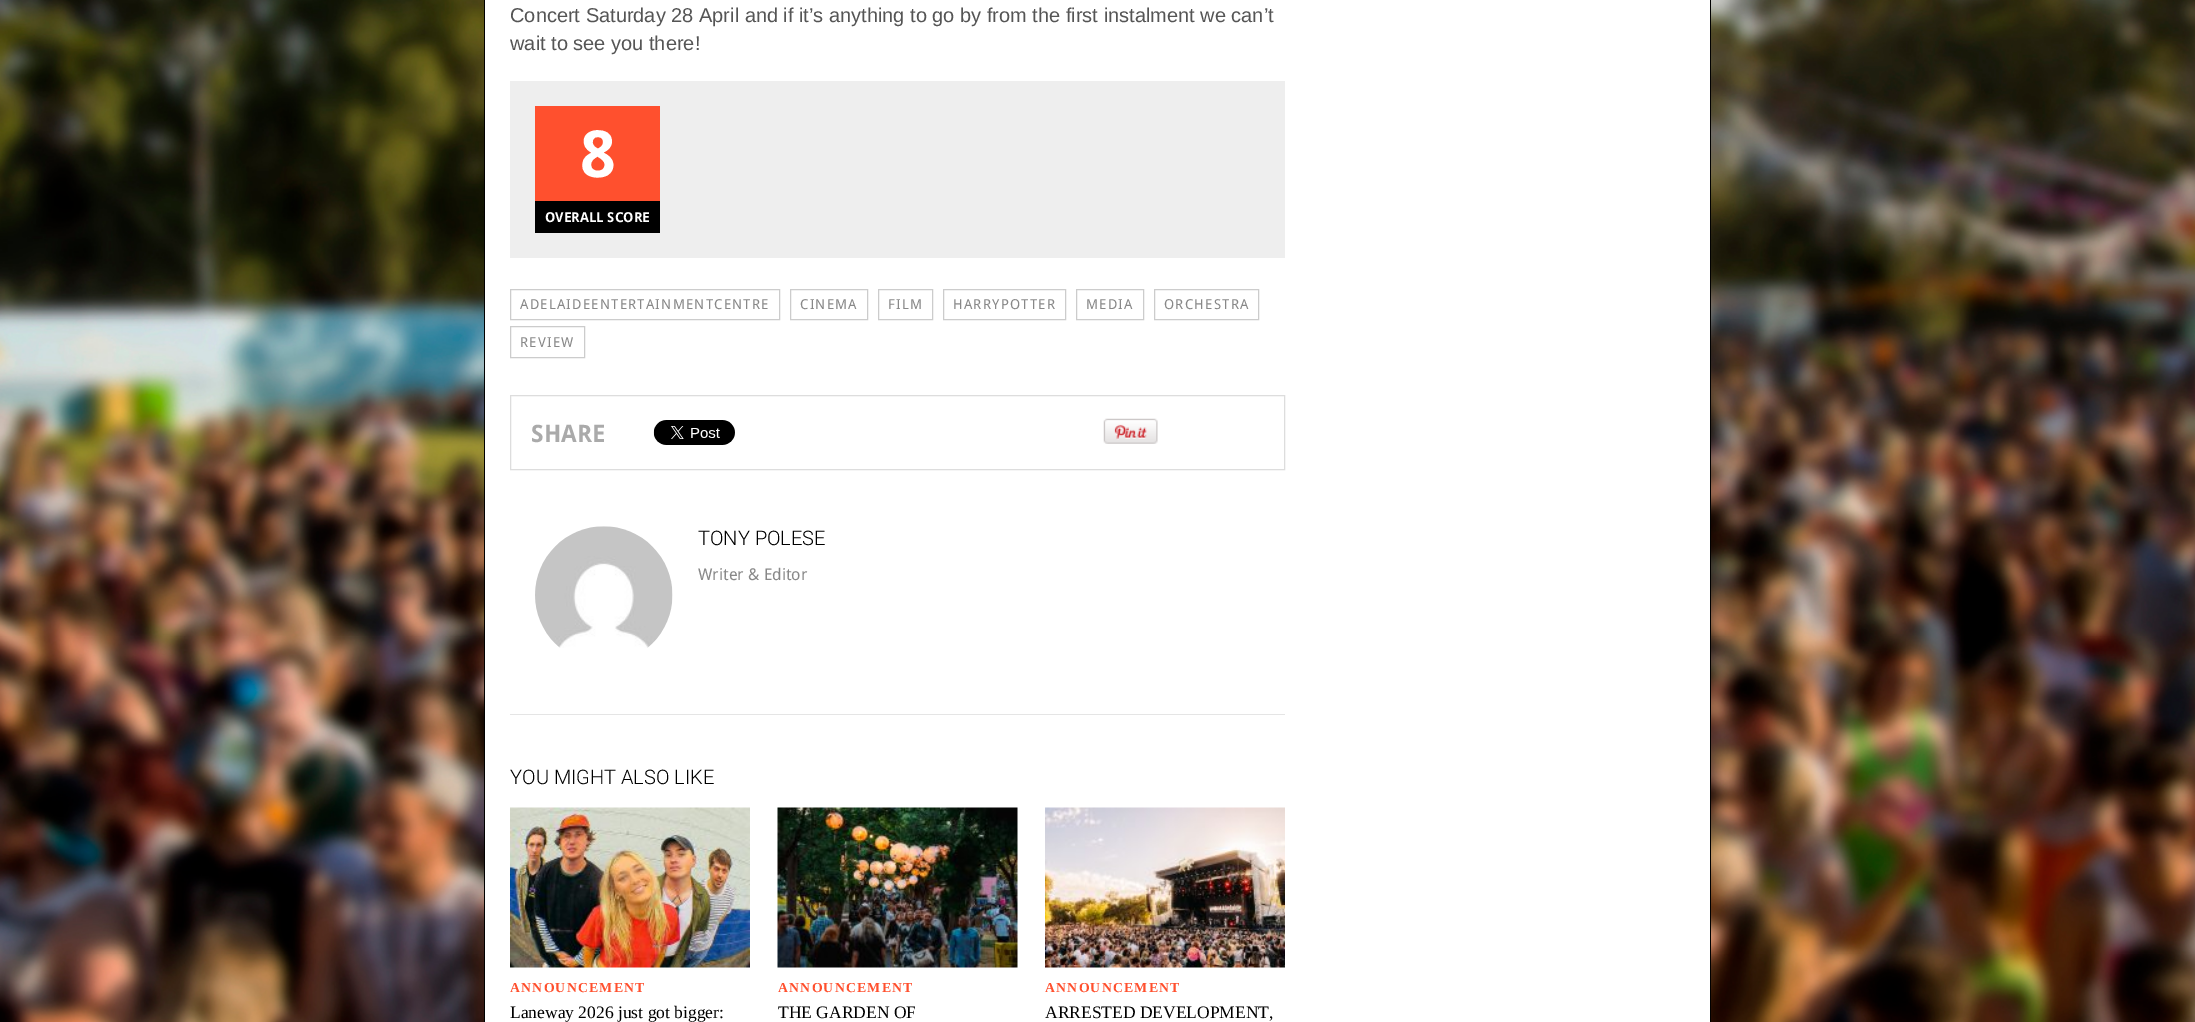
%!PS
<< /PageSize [2195 1022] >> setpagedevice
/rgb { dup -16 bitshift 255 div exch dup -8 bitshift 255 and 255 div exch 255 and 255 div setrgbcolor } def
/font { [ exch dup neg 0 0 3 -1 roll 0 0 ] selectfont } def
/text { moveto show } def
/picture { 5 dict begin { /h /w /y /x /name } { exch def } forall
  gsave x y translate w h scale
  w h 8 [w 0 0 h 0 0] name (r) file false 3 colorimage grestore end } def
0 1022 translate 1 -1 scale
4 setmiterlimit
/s1 { /LiberationSans-Regular 20 font 16#555555 rgb } def
/s2 { /DroidSans-Bold 65 font 16#FFFFFF rgb } def
/s3 { /DroidSans-Bold 13.75 font 16#FFFFFF rgb } def
/s4 { /DroidSans-Bold 24 font 16#AAAAAA rgb } def
/s5 { /Roboto-Light 20 font 16#000000 rgb } def
/s6 { /DroidSans-Regular 16.25 font 16#888888 rgb } def
/s7 { /LiberationSerif-Regular 17.5 font 16#000000 rgb } def
16#FFFFFF rgb
0 0 2195 1022 rectfill
(pic1.raw) 0 0 2195 1022 picture
485 0 1225 1022 rectfill
16#000000 rgb
1710 0 1 1022 rectfill
484 0 1 1022 rectfill
s1
(Concert Saturday 28 April and if it’s anything to go by from the first instalment we can’t) 510 22 text
(wait to see you there!) 510 50 text
16#EEEEEE rgb
510 81 775 177 rectfill
16#FF502E rgb
535 106 125 95 rectfill
s2
(8) 580 177 text
16#000000 rgb
535 201 125 32 rectfill
s3
(OVERALL SCORE) 545 222 text
16#CCCCCC rgb
510.5 289.5 269 30 rectstroke
/DroidSans-Regular 13.75 font
16#888888 rgb
520 309 moveto 1.25 0 (ADELAIDEENTERTAINMENTCENTRE) ashow
16#CCCCCC rgb
790.5 289.5 77 30 rectstroke
16#888888 rgb
800 309 moveto 1.25 0 (CINEMA) ashow
16#CCCCCC rgb
878.5 289.5 54 30 rectstroke
16#888888 rgb
888 309 moveto 1.25 0 (FILM) ashow
16#CCCCCC rgb
943.5 289.5 122 30 rectstroke
16#888888 rgb
953 309 moveto 1.25 0 (HARRYPOTTER) ashow
16#CCCCCC rgb
1076.5 289.5 67 30 rectstroke
16#888888 rgb
1086 309 moveto 1.25 0 (MEDIA) ashow
16#CCCCCC rgb
1154.5 289.5 104 30 rectstroke
16#888888 rgb
1164 309 moveto 1.25 0 (ORCHESTRA) ashow
16#CCCCCC rgb
510.5 326.5 74 31 rectstroke
16#888888 rgb
520 347 moveto 1.25 0 (REVIEW) ashow
16#DDDDDD rgb
510.5 395.5 774 74 rectstroke
s4
(SHARE) 531 442 text
(pic2.raw) 653 420 82 25 picture
(pic3.raw) 1103 418 55 26 picture
16#E5E5E5 rgb
510 714 775 1 rectfill
(pic4.raw) 535 526 138 122 picture
s5
(TONY POLESE) 698 545 text
s6
(Writer & Editor) 698 580 text
s5
(YOU MIGHT ALSO LIKE) 510 784 text
(pic5.raw) 510 807 240 161 picture
/LiberationSerif-Bold 13.75 font
16#FF502E rgb
510 992 moveto 1.25 0 (ANNOUNCEMENT) ashow
s7
(Laneway 2026 just got bigger:) 510 1018 text
(pic6.raw) 777 807 241 161 picture
/LiberationSerif-Bold 13.75 font
16#FF502E rgb
778 992 moveto 1.25 0 (ANNOUNCEMENT) ashow
s7
(THE GARDEN OF) 778 1018 text
(pic7.raw) 1045 807 240 161 picture
/LiberationSerif-Bold 13.75 font
16#FF502E rgb
1045 992 moveto 1.25 0 (ANNOUNCEMENT) ashow
s7
(ARRESTED DEVELOPMENT,) 1045 1018 text
showpage
